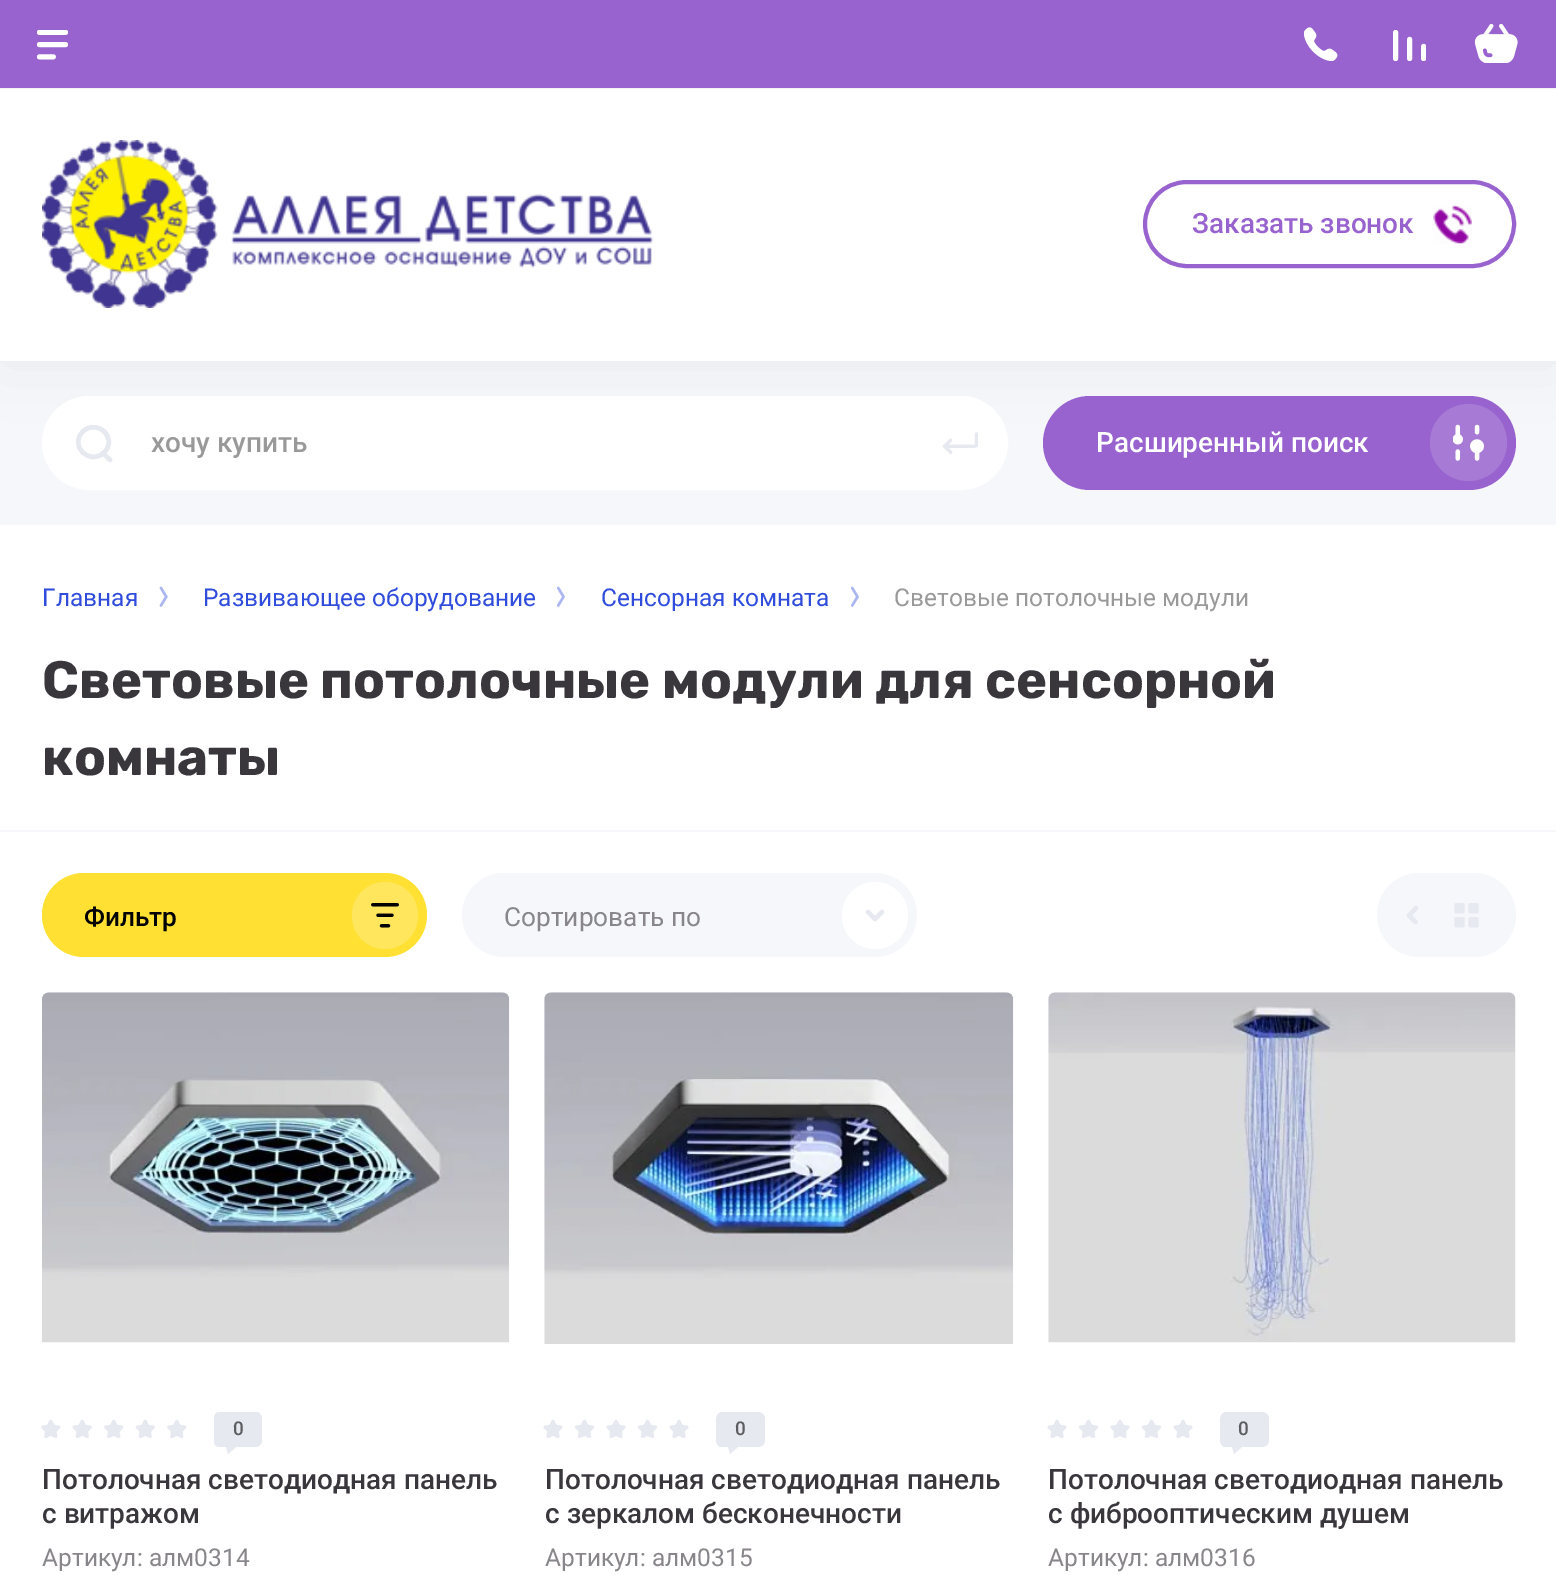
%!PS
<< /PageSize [1556 1575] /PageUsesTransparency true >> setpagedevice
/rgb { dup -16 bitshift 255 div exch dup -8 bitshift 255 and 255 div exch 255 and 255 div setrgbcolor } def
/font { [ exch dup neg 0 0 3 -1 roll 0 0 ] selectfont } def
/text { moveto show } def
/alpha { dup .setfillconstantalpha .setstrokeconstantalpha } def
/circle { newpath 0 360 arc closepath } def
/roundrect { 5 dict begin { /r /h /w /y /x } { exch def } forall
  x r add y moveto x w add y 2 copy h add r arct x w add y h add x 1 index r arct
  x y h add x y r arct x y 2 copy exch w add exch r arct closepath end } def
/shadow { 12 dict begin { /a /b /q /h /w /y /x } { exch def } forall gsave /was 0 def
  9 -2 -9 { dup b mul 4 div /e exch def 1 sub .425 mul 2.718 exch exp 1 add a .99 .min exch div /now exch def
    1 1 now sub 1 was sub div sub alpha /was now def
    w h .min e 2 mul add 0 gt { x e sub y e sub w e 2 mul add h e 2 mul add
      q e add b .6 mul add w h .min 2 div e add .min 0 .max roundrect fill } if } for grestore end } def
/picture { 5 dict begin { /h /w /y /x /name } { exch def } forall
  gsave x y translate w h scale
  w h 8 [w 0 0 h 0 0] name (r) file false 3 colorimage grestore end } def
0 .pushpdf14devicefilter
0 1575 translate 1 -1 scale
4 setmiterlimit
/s1 { /Roboto-Medium 28 font 16#9863CE rgb } def
/s2 { /Roboto-Medium 28 font 16#999999 rgb } def
/s3 { /Roboto-Medium 28 font 16#FFFFFF rgb } def
/s4 { /Roboto-Regular 24.5 font 16#304CDC rgb } def
/s5 { /Roboto-Regular 24.5 font 16#999999 rgb } def
/s6 { /Rubik-Bold 52.5 font 16#39363C rgb } def
/s7 { /Roboto-Medium 26.25 font 16#000000 rgb } def
/s8 { /Roboto-Regular 26.25 font 16#88868A rgb } def
/s9 { /Roboto-Medium 19 font 16#5C5D60 rgb } def
/s10 { /Roboto-Medium 28 font 16#39363C rgb } def
/s11 { /Roboto-Regular 24.5 font 16#88868A rgb } def
16#F6F7FB rgb
0 0 1556 1575 rectfill
16#000000 rgb
0 89 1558 273 0 35 0.05 shadow
16#F2F2F2 rgb
0 88 moveto 0 89 lineto 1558 89 lineto 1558 2 lineto 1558 88 lineto closepath fill
16#9863CE rgb
0 0 1556 88 rectfill
(pic1.raw) 37 30 31 30 picture
(pic2.raw) 1304 27 34 34 picture
(pic3.raw) 1393 30 33 31 picture
(pic4.raw) 1474 23 44 40 picture
16#FFFFFF rgb
0 89 1556 272 rectfill
(pic5.raw) 42 140 612 168 picture
16#9863CE rgb
4 setlinewidth
1145 182 369 84 42 roundrect stroke
s1
(Заказать звонок) 1192 233 text
(pic6.raw) 1433 205 39 39 picture
16#FFFFFF rgb
44 398 962 90 45 roundrect gsave fill grestore
stroke
16#E7E9F0 rgb
4.5 setlinewidth
78.25 427.25 30.5 29.5 14.75 roundrect stroke
1 setlinecap
103 453 moveto 110 460 lineto stroke
s2
(хочу купить) 151 452 text
(pic7.raw) 942 432 36 22 picture
16#9863CE rgb
1043 396 473 94 47 roundrect fill
s3
(Расширенный поиск) 1096 452 text
16#A77AD5 rgb
1468.5 442.5 38.5 circle fill
(pic8.raw) 1453 424 31 37 picture
16#FFFFFF rgb
0 525 1556 1050 rectfill
16#F6F7FB rgb
0 830 1556 2 rectfill
s4
(Главная) 42 606 text
(pic9.raw) 159 586 9 21 picture
(Развивающее оборудование) 203 606 text
(pic10.raw) 557 586 8 21 picture
(Сенсорная комната) 601 606 text
(pic10.raw) 851 586 8 21 picture
s5
(Световые потолочные модули) 894 606 text
s6
(Световые потолочные модули для сенсорной) 42 698 text
(комнаты) 42 775 text
16#FFE033 rgb
42 873 385 84 42 roundrect fill
s7
(Фильтр) 84 926 text
16#FFE65C rgb
352 882 66 67 33 roundrect fill
(pic11.raw) 371 903 28 25 picture
16#F6F7FB rgb
462 873 455 84 42 roundrect fill
s8
(Сортировать по) 504 926 text
16#FFFFFF rgb
842 882 66 67 33 roundrect fill
16#E7E9F0 rgb
1 setlinejoin
882 912 moveto 875 919 lineto 868 912 lineto stroke
16#F6F7FB rgb
1377 873 139 84 42 roundrect fill
16#E7E9F0 rgb
1415.5 922 moveto 1409 915.5 lineto 1416 908 lineto stroke
(pic12.raw) 1454 903 25 25 picture
(pic13.raw) 42 992 468 351 picture
(pic14.raw) 41 1419 146 19 picture
gsave
214 1412 49 42 rectclip
220 1412 moveto 211 1412 214 1424 214 1430 curveto 214 1435 211 1446 219 1447 curveto 226 1447 lineto 228 1454 lineto 236 1447 lineto 256 1447 lineto 259 1447 262 1444 262 1440 curveto 262 1419 lineto 262 1415 259 1412 256 1412 curveto closepath fill
grestore
s9
(0) 233 1435 text
s10
(Потолочная светодиодная панель) 42 1489 text
(с витражом) 42 1523 text
s11
(Артикул: алм0314) 42 1566 text
(pic15.raw) 544 992 470 352 picture
(pic16.raw) 543 1419 146 19 picture
gsave
716 1412 49 42 rectclip
16#E7E9F0 rgb
723 1412 moveto 714 1412 716 1424 716 1430 curveto 716 1435 714 1446 721 1447 curveto 728 1447 lineto 730 1454 lineto 738 1447 lineto 758 1447 lineto 762 1447 765 1444 765 1440 curveto 765 1419 lineto 765 1415 762 1412 758 1412 curveto closepath fill
grestore
s9
(0) 735 1435 text
s10
(Потолочная светодиодная панель) 545 1489 text
(с зеркалом бесконечности) 545 1523 text
s11
(Артикул: алм0315) 545 1566 text
(pic17.raw) 1048 992 468 351 picture
(pic16.raw) 1047 1419 146 19 picture
gsave
1220 1412 49 42 rectclip
16#E7E9F0 rgb
1227 1412 moveto 1218 1412 1220 1424 1220 1430 curveto 1220 1435 1218 1446 1225 1447 curveto 1232 1447 lineto 1234 1454 lineto 1242 1447 lineto 1262 1447 lineto 1266 1447 1269 1444 1269 1440 curveto 1269 1419 lineto 1269 1415 1266 1412 1262 1412 curveto closepath fill
grestore
s9
(0) 1238 1435 text
s10
(Потолочная светодиодная панель) 1048 1489 text
(с фиброоптическим душем) 1048 1523 text
s11
(Артикул: алм0316) 1048 1566 text
.poppdf14devicefilter showpage
